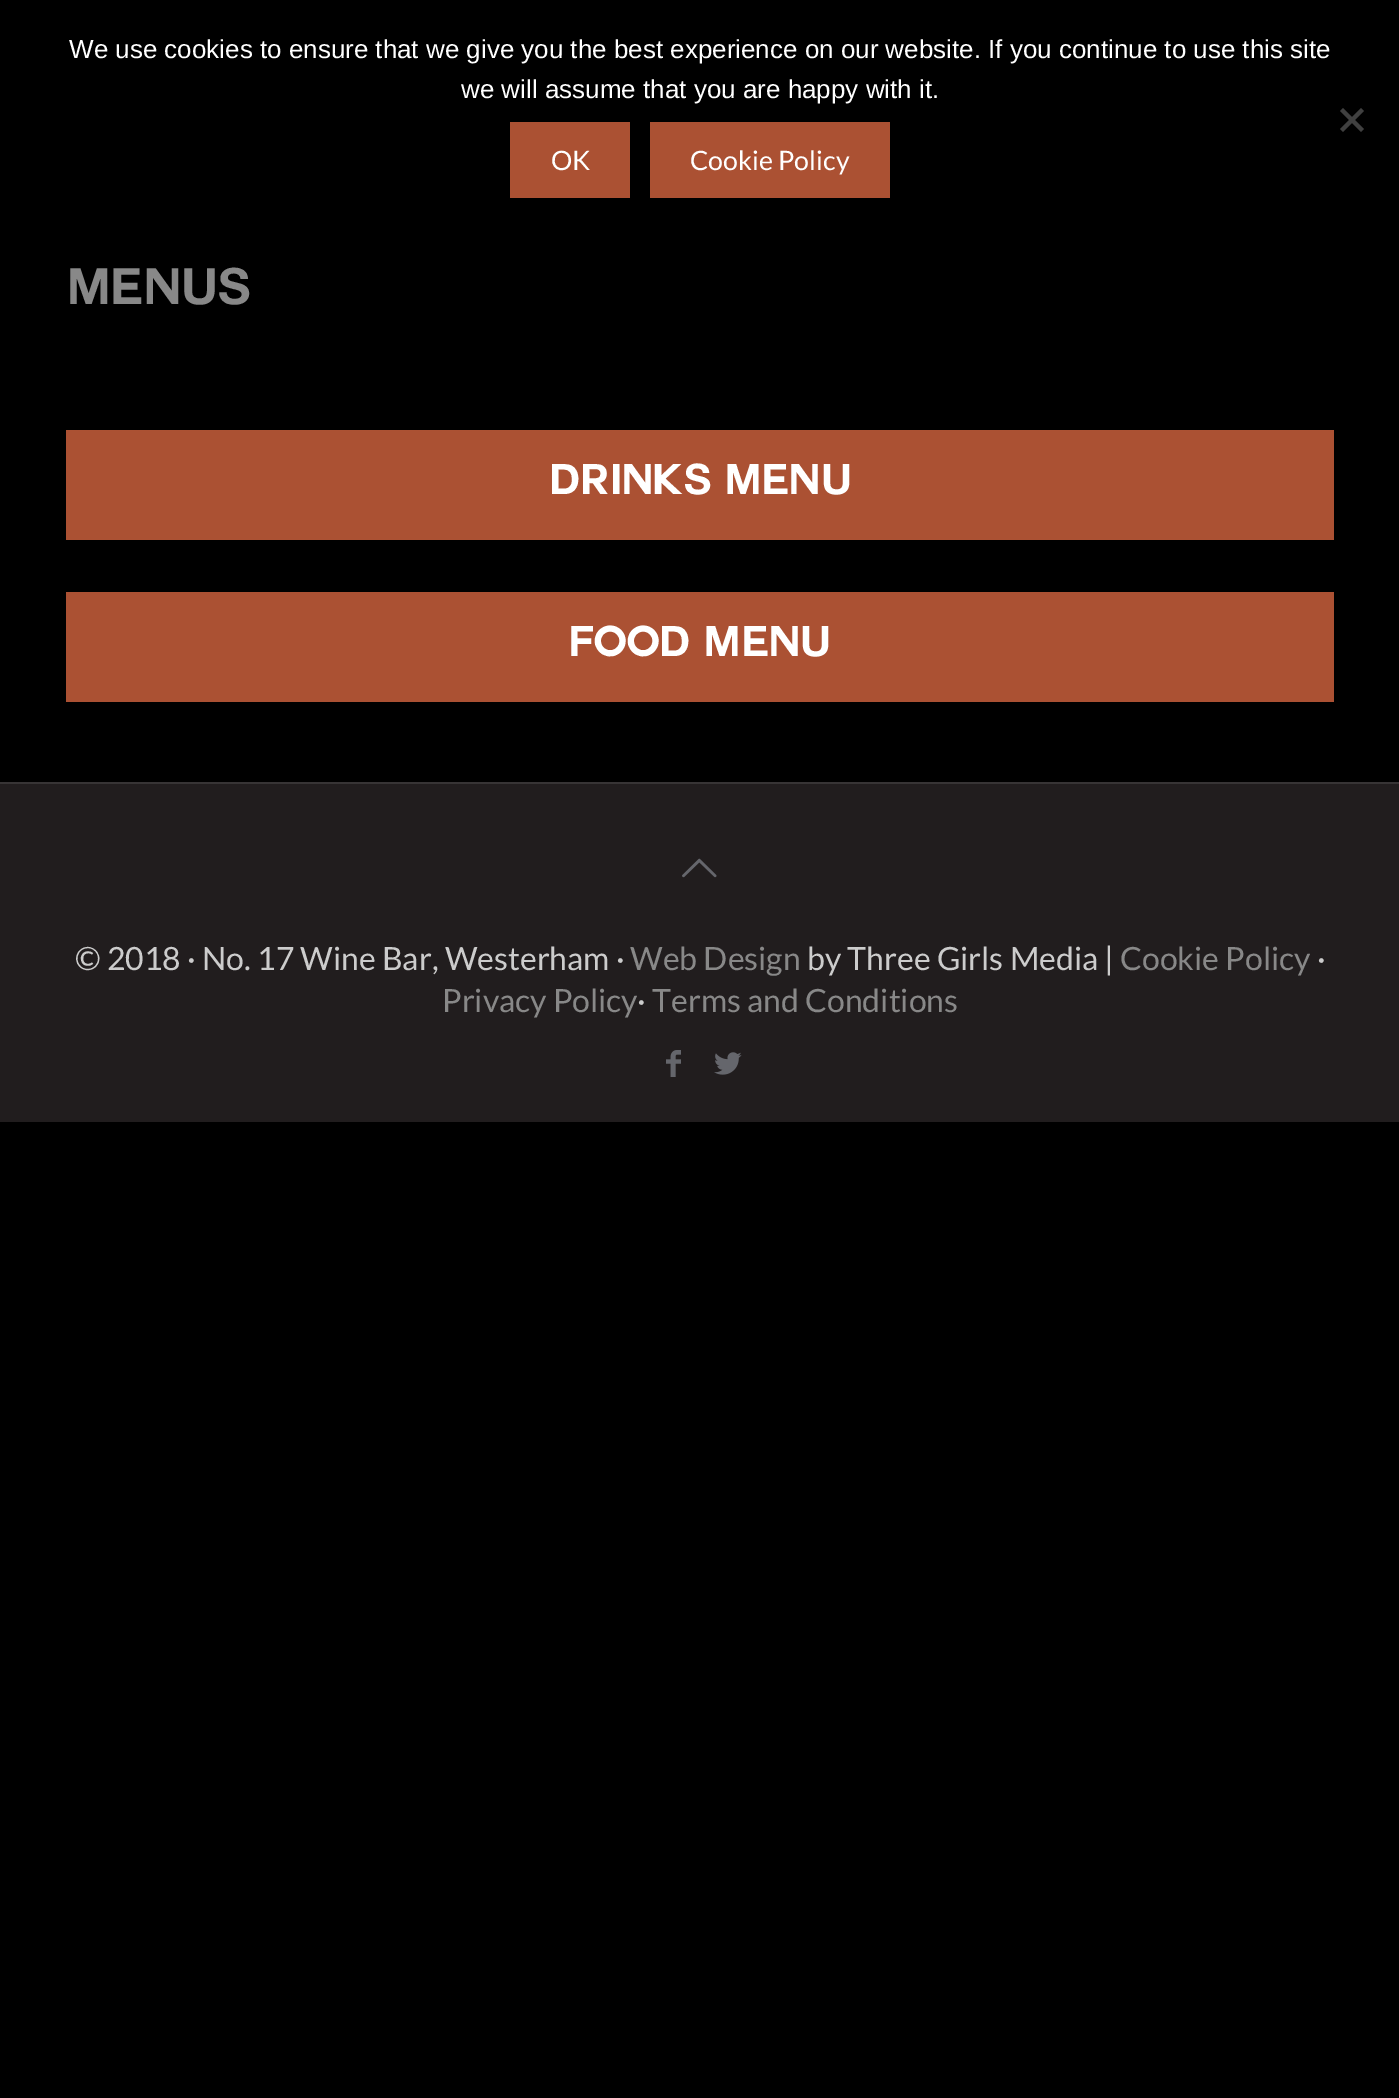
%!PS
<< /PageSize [1399 2098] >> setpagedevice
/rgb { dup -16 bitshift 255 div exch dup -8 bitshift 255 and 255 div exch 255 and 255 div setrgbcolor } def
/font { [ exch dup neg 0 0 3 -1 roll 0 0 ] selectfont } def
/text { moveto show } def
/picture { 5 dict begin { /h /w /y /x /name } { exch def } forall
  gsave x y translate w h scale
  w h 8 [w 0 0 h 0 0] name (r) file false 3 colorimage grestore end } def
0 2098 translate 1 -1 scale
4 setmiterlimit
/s1 { /LiberationSans-Regular 26 font 16#FFFFFF rgb } def
/s2 { /Lato-Regular 26.75 font 16#FFFFFF rgb } def
/s3 { /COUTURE-Bold 50 font 16#888888 rgb } def
/s4 { /COUTURE-Bold 42 font 16#FFFFFF rgb } def
/s5 { /Lato-Regular 32 font 16#CCCCCC rgb } def
/s6 { /Lato-Regular 32 font 16#888888 rgb } def
16#000000 rgb
0 0 1399 2098 rectfill
s1
(We use cookies to ensure that we give you the best experience on our website. If you continue to use this site) 69 58 text
(we will assume that you are happy with it.) 461 98 text
16#404040 rgb
1361 108 moveto 1364 111 lineto 1343 132 lineto 1340 129 lineto closepath fill
1340 111 moveto 1343 108 lineto 1364 129 lineto 1361 132 lineto closepath fill
16#AB5133 rgb
510 122 120 76 rectfill
s2
(OK) 551 170 text
16#AB5133 rgb
650 122 240 76 rectfill
s2
(Cookie Policy) 690 170 text
s3
(MENUS) 66 304 text
16#AB5133 rgb
66 430 1268 110 rectfill
s4
(Drinks Menu) 549 494 text
16#AB5133 rgb
66 592 1268 110 rectfill
s4
(Food Menu) 569 656 text
16#211D1E rgb
0 784 1399 338 rectfill
16#373435 rgb
0 782 1399 2 rectfill
(pic1.raw) 682 858 35 20 picture
s5
(© 2018 · No. 17 Wine Bar, Westerham ·) 75 970 text
s6
(Web Design) 630 970 text
s5
(by Three Girls Media |) 807 970 text
s6
(Cookie Policy) 1120 970 text
s5
(·) 1317 970 text
s6
(Privacy Policy) 442 1012 text
s5
(·) 637 1012 text
s6
(Terms and Conditions) 652 1012 text
(pic2.raw) 666 1050 15 27 picture
(pic3.raw) 714 1052 28 23 picture
showpage
